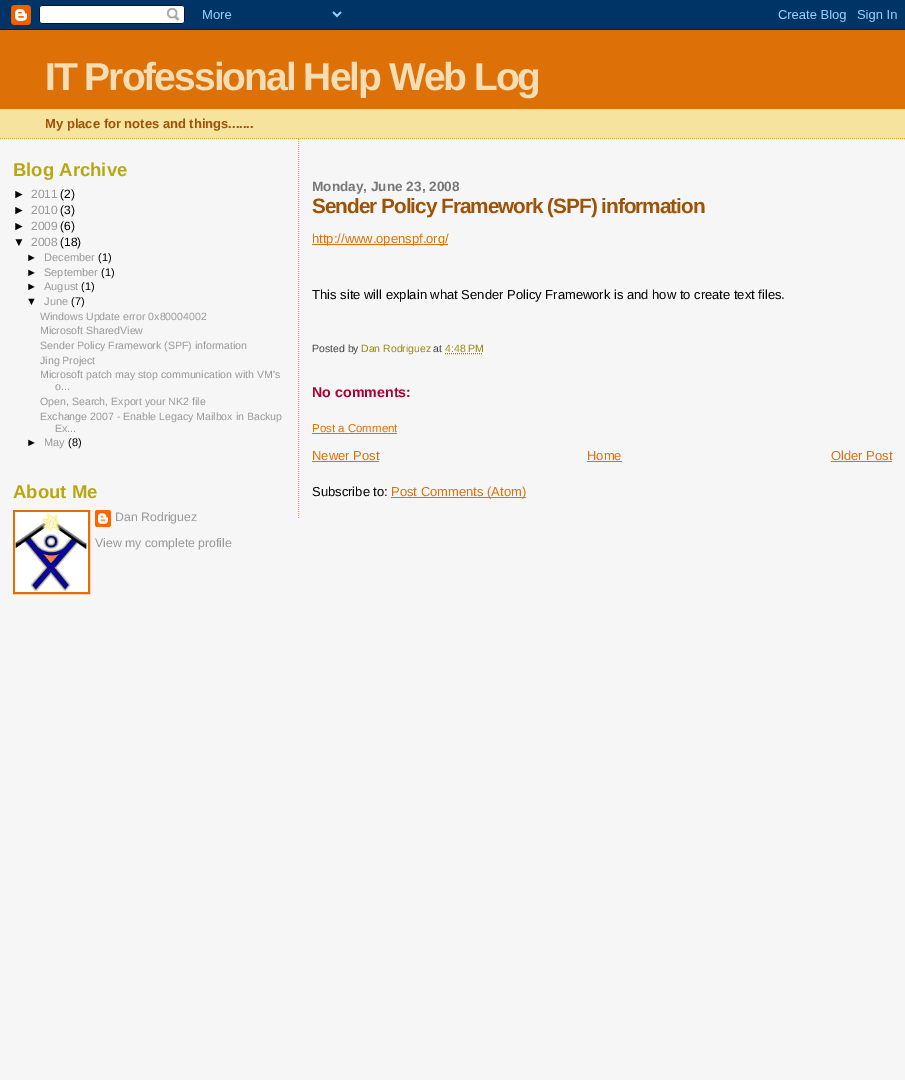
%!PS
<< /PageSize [905 1080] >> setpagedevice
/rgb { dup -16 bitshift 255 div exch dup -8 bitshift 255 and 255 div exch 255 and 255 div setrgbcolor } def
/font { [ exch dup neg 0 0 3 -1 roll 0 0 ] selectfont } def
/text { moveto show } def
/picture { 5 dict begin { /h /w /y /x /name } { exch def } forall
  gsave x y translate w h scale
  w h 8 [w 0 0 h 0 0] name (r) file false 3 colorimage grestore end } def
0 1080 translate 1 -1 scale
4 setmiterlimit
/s1 { /LiberationSans-Bold 13 font 16#9E5205 rgb } def
/s2 { /LiberationSans-Bold 18.5 font 16#B8A80D rgb } def
/s3 { /LiberationSans-Regular 12 font 16#000000 rgb } def
/s4 { /LiberationSans-Regular 12 font 16#999999 rgb } def
/s5 { /LiberationSans-Regular 11 font 16#000000 rgb } def
/s6 { /LiberationSans-Regular 11 font 16#999999 rgb } def
/s7 { /LiberationSans-Regular 10.6 font 16#999999 rgb } def
/s8 { /LiberationSans-Regular 12.3 font 16#999999 rgb } def
/s9 { /LiberationSans-Bold 13.6 font 16#777777 rgb } def
/s10 { /LiberationSans-Regular 13 font 16#DE7008 rgb } def
/s11 { /LiberationSans-Regular 13 font 16#000000 rgb } def
/s12 { /LiberationSans-Regular 10.5 font 16#444444 rgb } def
/s13 { /LiberationSans-Regular 10.5 font 16#968A0A rgb } def
/s14 { /LiberationSans-Bold 14.25 font 16#AA0033 rgb } def
/s15 { /LiberationSans-Regular 11.5 font 16#DE7008 rgb } def
16#F6F6F6 rgb
0 0 905 1080 rectfill
(pic1.raw) 0 0 905 30 picture
16#F5E39E rgb
0 109 905 30 rectfill
16#E0AD12 rgb
[1 1] 0 setdash
0 138.5 moveto 905 138.5 lineto stroke
16#DE7008 rgb
0 30 905 79 rectfill
/LiberationSans-Bold 39 font
16#F5DEB3 rgb
45 90 moveto -2 0 (IT Professional Help Web Log) ashow
s1
(My place for notes and things.......) 45 128 text
s2
(Blog Archive) 13 176 text
s3
(►) 13 198 text
s4
(2011) 31 198 text
s3
(\(2\)) 60 198 text
(►) 13 214 text
s4
(2010) 31 214 text
s3
(\(3\)) 60 214 text
(►) 13 230 text
s4
(2009) 31 230 text
s3
(\(6\)) 60 230 text
(▼) 13 246 text
s4
(2008) 31 246 text
s3
(\(18\)) 60 246 text
s5
(►) 26 261 text
s6
(December) 44 261 text
s5
(\(1\)) 98 261 text
(►) 26 276 text
s6
(September) 44 276 text
s5
(\(1\)) 101 276 text
(►) 26 290 text
s6
(August) 44 290 text
s5
(\(1\)) 81 290 text
(▼) 26 305 text
s6
(June) 44 305 text
s5
(\(7\)) 71 305 text
s7
(Windows Update error 0x80004002) 40 320 text
(Microsoft SharedView) 40 334 text
(Sender Policy Framework \(SPF\) information) 40 349 text
(Jing Project) 40 364 text
(Microsoft patch may stop communication with VM's) 40 378 text
(o...) 55 390 text
(Open, Search, Export your NK2 file) 40 405 text
(Exchange 2007 - Enable Legacy Mailbox in Backup) 40 420 text
(Ex...) 55 432 text
s5
(►) 26 446 text
s6
(May) 44 446 text
s5
(\(8\)) 68 446 text
s2
(About Me) 13 498 text
16#DE7008 rgb
2 setlinewidth
[] 0 setdash
14 511 75 82 rectstroke
(pic2.raw) 15 512 73 80 picture
(pic3.raw) 95 510 16 17 picture
s8
(Dan Rodriguez) 115 521 text
(View my complete profile) 95 547 text
16#E0AD12 rgb
1 setlinewidth
[1 1] 0 setdash
298.5 139 moveto 298.5 519 lineto stroke
s9
(Monday, June 23, 2008) 312 191 text
/LiberationSans-Bold 20.75 font
16#9E5205 rgb
312 213 moveto -1 0 (Sender Policy Framework \(SPF\) information) ashow
16#DE7008 rgb
312 244 136 1 rectfill
s10
(http://www.openspf.org/) 312 243 text
s11
(This site will explain what Sender Policy Framework is and how to create text files.) 312 299 text
s12
(Posted by) 312 352 text
s13
(Dan Rodriguez) 361 352 text
s12
(at) 433 352 text
s13
(4:48 PM) 445 352 text
445 353.5 moveto 482.5 353.5 lineto stroke
s14
(No comments:) 312 397 text
s15
(Post a Comment) 312 432 text
312 433 85 1 rectfill
s10
(Newer Post) 312 460 text
312 461 67 1 rectfill
(Home) 587 460 text
587 461 35 1 rectfill
(Older Post) 831 460 text
831 461 61 1 rectfill
s11
(Subscribe to:) 312 496 text
16#DE7008 rgb
391 497 135 1 rectfill
(Post Comments \(Atom\)) 391 496 text
showpage
